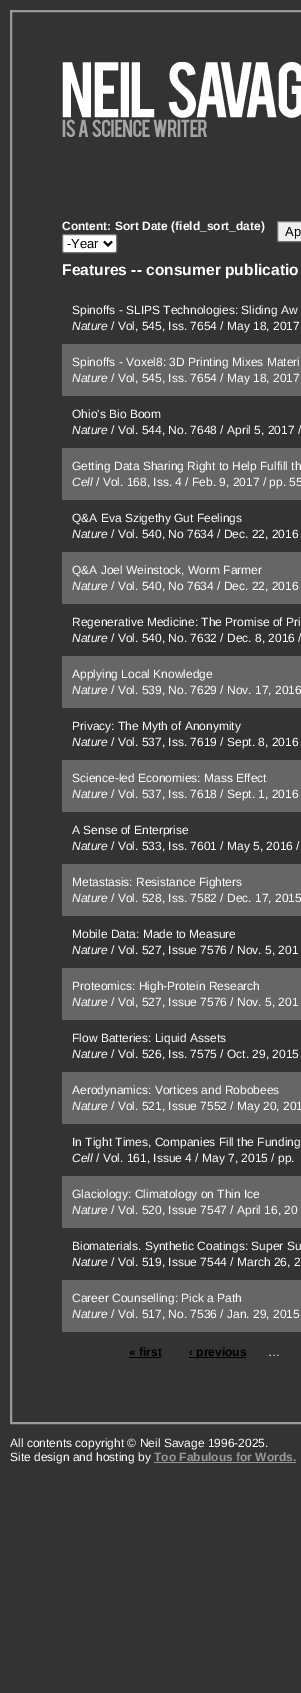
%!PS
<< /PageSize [301 1693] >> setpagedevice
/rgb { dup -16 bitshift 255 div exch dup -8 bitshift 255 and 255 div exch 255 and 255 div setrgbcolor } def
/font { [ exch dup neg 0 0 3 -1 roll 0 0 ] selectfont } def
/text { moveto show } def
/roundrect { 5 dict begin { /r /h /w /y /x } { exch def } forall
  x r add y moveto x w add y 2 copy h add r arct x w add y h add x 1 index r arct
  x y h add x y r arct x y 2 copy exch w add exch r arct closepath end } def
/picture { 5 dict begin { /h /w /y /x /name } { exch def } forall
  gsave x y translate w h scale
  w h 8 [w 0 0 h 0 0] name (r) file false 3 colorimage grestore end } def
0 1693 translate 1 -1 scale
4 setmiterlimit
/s1 { /LiberationSans-Bold 12 font 16#FFFFFF rgb } def
/s2 { /LiberationSans-Regular 13 font 16#000000 rgb } def
/s3 { /LiberationSans-Bold 15.6 font 16#FFFFFF rgb } def
/s4 { /LiberationSans-Regular 12 font 16#FFFFFF rgb } def
/s5 { /LiberationSans-Italic 12 font 16#FFFFFF rgb } def
/s6 { /LiberationSans-Bold 12 font 16#000000 rgb } def
/s7 { /LiberationSans-Bold 12 font 16#999999 rgb } def
16#333333 rgb
0 0 301 1693 rectfill
16#999999 rgb
2 setlinewidth
11 11 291 1412 rectstroke
(pic1.raw) 62 62 239 75 picture
s1
(Content: Sort Date \(field_sort_date\)) 62 230 text
62.5 234.5 54 18 1.5 roundrect gsave fill grestore
16#767676 rgb
1 setlinewidth
stroke
16#000000 rgb
2 setlinewidth
104 241.5 moveto 108 245.5 lineto 112 241.5 lineto stroke
s2
(-Year) 67 248 text
16#EFEFEF rgb
277.5 221.5 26 20 1.5 roundrect gsave fill grestore
16#767676 rgb
1 setlinewidth
stroke
s2
(Ap) 285 236 text
s3
(Features -- consumer publicatio) 62 275 text
s4
(Spinoffs - SLIPS Technologies: Sliding Aw) 72 314 text
s5
(Nature) 72 330 text
s4
(/ Vol, 545, Iss. 7654 / May 18, 2017) 111 330 text
16#666666 rgb
62 344 239 52 rectfill
s4
(Spinoffs - Voxel8: 3D Printing Mixes Materi) 72 366 text
s5
(Nature) 72 382 text
s4
(/ Vol, 545, Iss. 7654 / May 18, 2017) 111 382 text
(Ohio's Bio Boom) 72 418 text
s5
(Nature) 72 434 text
s4
(/ Vol. 544, No. 7648 / April 5, 2017 /) 111 434 text
16#666666 rgb
62 448 239 52 rectfill
s4
(Getting Data Sharing Right to Help Fulfill th) 72 470 text
s5
(Cell) 72 486 text
s4
(/ Vol. 168, Iss. 4 / Feb. 9, 2017 / pp. 55) 96 486 text
(Q&A Eva Szigethy Gut Feelings) 72 522 text
s5
(Nature) 72 538 text
s4
(/ Vol. 540, No 7634 / Dec. 22, 2016) 111 538 text
16#666666 rgb
62 552 239 52 rectfill
s4
(Q&A Joel Weinstock, Worm Farmer) 72 574 text
s5
(Nature) 72 590 text
s4
(/ Vol. 540, No 7634 / Dec. 22, 2016) 111 590 text
(Regenerative Medicine: The Promise of Pri) 72 626 text
s5
(Nature) 72 642 text
s4
(/ Vol. 540, No. 7632 / Dec. 8, 2016 /) 111 642 text
16#666666 rgb
62 656 239 52 rectfill
s4
(Applying Local Knowledge) 72 678 text
s5
(Nature) 72 694 text
s4
(/ Vol. 539, No. 7629 / Nov. 17, 2016) 111 694 text
(Privacy: The Myth of Anonymity) 72 730 text
s5
(Nature) 72 746 text
s4
(/ Vol. 537, Iss. 7619 / Sept. 8, 2016) 111 746 text
16#666666 rgb
62 760 239 52 rectfill
s4
(Science-led Economies: Mass Effect) 72 782 text
s5
(Nature) 72 798 text
s4
(/ Vol. 537, Iss. 7618 / Sept. 1, 2016) 111 798 text
(A Sense of Enterprise) 72 834 text
s5
(Nature) 72 850 text
s4
(/ Vol. 533, Iss. 7601 / May 5, 2016 /) 111 850 text
16#666666 rgb
62 864 239 52 rectfill
s4
(Metastasis: Resistance Fighters) 72 886 text
s5
(Nature) 72 902 text
s4
(/ Vol. 528, Iss. 7582 / Dec. 17, 2015) 111 902 text
(Mobile Data: Made to Measure) 72 938 text
s5
(Nature) 72 954 text
s4
(/ Vol. 527, Issue 7576 / Nov. 5, 201) 111 954 text
16#666666 rgb
62 968 239 52 rectfill
s4
(Proteomics: High-Protein Research) 72 990 text
s5
(Nature) 72 1006 text
s4
(/ Vol, 527, Issue 7576 / Nov. 5, 201) 111 1006 text
(Flow Batteries: Liquid Assets) 72 1042 text
s5
(Nature) 72 1058 text
s4
(/ Vol. 526, Iss. 7575 / Oct. 29, 2015) 111 1058 text
16#666666 rgb
62 1072 239 52 rectfill
s4
(Aerodynamics: Vortices and Robobees) 72 1094 text
s5
(Nature) 72 1110 text
s4
(/ Vol. 521, Issue 7552 / May 20, 201) 111 1110 text
(In Tight Times, Companies Fill the Funding) 72 1146 text
s5
(Cell) 72 1162 text
s4
(/ Vol. 161, Issue 4 / May 7, 2015 / pp.) 96 1162 text
16#666666 rgb
62 1176 239 52 rectfill
s4
(Glaciology: Climatology on Thin Ice) 72 1198 text
s5
(Nature) 72 1214 text
s4
(/ Vol. 520, Issue 7547 / April 16, 20) 111 1214 text
(Biomaterials. Synthetic Coatings: Super Su) 72 1250 text
s5
(Nature) 72 1266 text
s4
(/ Vol. 519, Issue 7544 / March 26, 2) 111 1266 text
16#666666 rgb
62 1280 239 52 rectfill
s4
(Career Counselling: Pick a Path) 72 1302 text
s5
(Nature) 72 1318 text
s4
(/ Vol. 517, No. 7536 / Jan. 29, 2015) 111 1318 text
s6
(« first) 129 1356 text
129 1357 32 1 rectfill
189 1357 57 1 rectfill
(‹ previous) 189 1356 text
s4
(…) 268 1356 text
(All contents copyright © Neil Savage 1996-2025.) 10 1447 text
(Site design and hosting by) 10 1461 text
s7
(Too Fabulous for Words.) 154 1461 text
154 1462 142 1 rectfill
showpage
